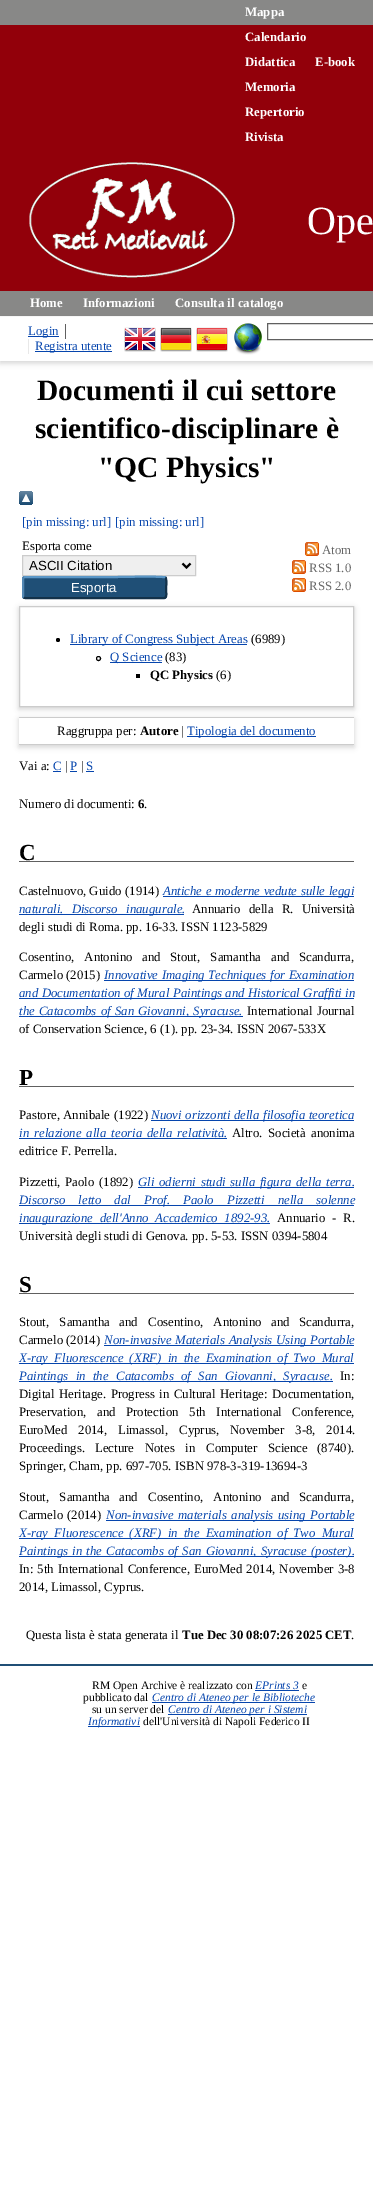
%!PS
<< /PageSize [373 2198] /PageUsesTransparency true >> setpagedevice
/rgb { dup -16 bitshift 255 div exch dup -8 bitshift 255 and 255 div exch 255 and 255 div setrgbcolor } def
/font { [ exch dup neg 0 0 3 -1 roll 0 0 ] selectfont } def
/text { moveto show } def
/alpha { dup .setfillconstantalpha .setstrokeconstantalpha } def
/circle { newpath 0 360 arc closepath } def
/roundrect { 5 dict begin { /r /h /w /y /x } { exch def } forall
  x r add y moveto x w add y 2 copy h add r arct x w add y h add x 1 index r arct
  x y h add x y r arct x y 2 copy exch w add exch r arct closepath end } def
/shadow { 12 dict begin { /a /b /q /h /w /y /x } { exch def } forall gsave /was 0 def
  9 -2 -9 { dup b mul 4 div /e exch def 1 sub .425 mul 2.718 exch exp 1 add a .99 .min exch div /now exch def
    1 1 now sub 1 was sub div sub alpha /was now def
    w h .min e 2 mul add 0 gt { x e sub y e sub w e 2 mul add h e 2 mul add
      q e add b .6 mul add w h .min 2 div e add .min 0 .max roundrect fill } if } for grestore end } def
/picture { 5 dict begin { /h /w /y /x /name } { exch def } forall
  gsave x y translate w h scale
  w h 8 [w 0 0 h 0 0] name (r) file false 3 colorimage grestore end } def
0 .pushpdf14devicefilter
0 2198 translate 1 -1 scale
4 setmiterlimit
/s1 { /LiberationSerif-Bold 12.8 font 16#FFFFFF rgb } def
/s2 { /LiberationSerif-Regular 40 font 16#FFFFFF rgb } def
/s3 { /LiberationSerif-Regular 12.8 font 16#0645AD rgb } def
/s4 { /LiberationSerif-Bold 29.5 font 16#000000 rgb } def
/s5 { /LiberationSerif-Regular 12.8 font 16#000000 rgb } def
/s6 { /LiberationSans-Regular 13.25 font 16#000000 rgb } def
/s7 { /LiberationSans-Regular 13.25 font 16#FFFFFF rgb } def
/s8 { /LiberationSerif-Regular 12.8 font 16#666666 rgb } def
/s9 { /LiberationSerif-Bold 12.8 font 16#000000 rgb } def
/s10 { /LiberationSerif-Bold 23 font 16#000000 rgb } def
/s11 { /LiberationSerif-Regular 11.5 font 16#000000 rgb } def
/s12 { /LiberationSerif-Italic 11.5 font 16#0645AD rgb } def
16#FFFFFF rgb
0 0 373 2198 rectfill
16#92000A rgb
0 25 373 266 rectfill
16#888887 rgb
0 0 373 25 rectfill
s1
(Mappa) 245 16 text
(Calendario) 245 41 text
(Didattica) 245 66 text
(E-book) 315 66 text
(Memoria) 245 91 text
(Repertorio) 245 116 text
(Rivista) 245 141 text
(pic1.raw) 29 162 206 116 picture
s2
(Ope) 307 234 text
16#888887 rgb
0 291 373 25 rectfill
s1
(Home) 30 307 text
(Informazioni) 83 307 text
16#646464 rgb
0 319 373 44 0 3 0.3 shadow
s1
(Consulta il catalogo) 175 307 text
0 317 373 44 rectfill
16#606060 rgb
65 324 1 15 rectfill
16#0645AD rgb
28 336 31 1 rectfill
s3
(Login) 28 335 text
16#E8E8E8 rgb
28 339 1 15 rectfill
16#0645AD rgb
35 351 77 1 rectfill
(Registra utente) 35 350 text
(pic2.raw) 124 327 32 25 picture
(pic3.raw) 160 327 32 25 picture
(pic4.raw) 196 327 32 25 picture
(pic5.raw) 234 323 28 32 picture
16#606060 rgb
267.5 323.5 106 16 rectstroke
s4
(Documenti il cui settore) 37 400 text
(scientifico-disciplinare è) 35 438 text
("QC Physics") 98 477 text
(pic6.raw) 19 491 14 14 picture
s3
([pin missing: url]) 22 526 text
([pin missing: url]) 115 526 text
s5
(Esporta come) 22 550 text
16#EFEFEF rgb
22.5 555.5 moveto 195.5 555.5 lineto 195.5 575.5 lineto 22.5 575.5 lineto closepath gsave fill grestore
16#CCCCCC rgb
stroke
16#000000 rgb
2 setlinewidth
182.5 563.5 moveto 186.5 567.5 lineto 190.5 563.5 lineto stroke
s6
(ASCII Citation) 29 570 text
gsave
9 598 moveto 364 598 lineto 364 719 lineto 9 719 lineto closepath 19 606 moveto 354 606 lineto 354 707 lineto 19 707 lineto closepath eoclip newpath
16#646464 rgb
19 608 335 101 0 3 0.3 shadow
grestore
16#1F4F76 rgb
22 576 145 23 3 roundrect fill
16#5B97C7 rgb
23.5 577.5 moveto 25 577 lineto 117.5 577 lineto 120.5 577 164 576 165.5 577.5 curveto stroke
16#13324A rgb
165.5 577.5 moveto 167 579 166 588 166 590.5 curveto 166 592 167.5 597 164.5 598 curveto 25 598 lineto 23.5 597.5 lineto stroke
16#5287B3 rgb
23.5 597.5 moveto 23 597 23 596.5 23 596 curveto 23 579 lineto 23 578.5 23 578 23.5 577.5 curveto stroke
s7
(Esporta) 71 592 text
(pic7.raw) 305 542 14 14 picture
s8
(Atom) 322 554 text
(pic7.raw) 292 560 14 14 picture
(RSS 1.0) 309 572 text
(pic7.raw) 292 578 14 14 picture
(RSS 2.0) 309 590 text
16#CCCCCC rgb
1 setlinewidth
19.5 606.5 334 100 rectstroke
16#000000 rgb
58 640 2 circle fill
16#0645AD rgb
70 644 177 1 rectfill
(Library of Congress Subject Areas) 70 643 text
s5
(\(6989\)) 251 643 text
98.5 658.5 2 circle stroke
16#0645AD rgb
110 662 52 1 rectfill
(Q Science) 110 661 text
s5
(\(83\)) 165 661 text
136 674 4 4 rectfill
s9
(QC Physics) 150 679 text
s5
(\(6\)) 216 679 text
gsave
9 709 moveto 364 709 lineto 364 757 lineto 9 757 lineto closepath 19 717 moveto 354 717 lineto 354 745 lineto 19 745 lineto closepath eoclip newpath
16#646464 rgb
19 719 335 28 0 3 0.3 shadow
grestore
16#CCCCCC rgb
19 717 335 1 rectfill
19 744 335 1 rectfill
s5
(Raggruppa per:) 57 735 text
s9
(Autore) 140 735 text
s5
(|) 181 735 text
16#0645AD rgb
187 736 129 1 rectfill
(Tipologia del documento) 187 735 text
s5
(Vai a:) 19 770 text
s3
(C) 53 770 text
53 771 8 1 rectfill
s5
(|) 65 770 text
s3
(P) 70 770 text
70 771 7 1 rectfill
s5
(|) 81 770 text
s3
(S) 86 770 text
86 771 8 1 rectfill
s5
(Numero di documenti:) 19 808 text
s9
(6) 138 808 text
s5
(.) 144 808 text
16#606060 rgb
19 861 335 1 rectfill
s10
(C) 19 860 text
s5
(Castelnuovo, Guido) 19 895 text
(\(1914\)) 125 895 text
16#0645AD rgb
163 896 191 1 rectfill
/LiberationSerif-Italic 12.8 font
163 895 moveto 0.5 0 32 (Antiche e moderne vedute sulle leggi) widthshow
19 914 165 1 rectfill
19 913 moveto 5 0 32 (naturali. Discorso inaugurale.) widthshow
/LiberationSerif-Regular 12.8 font
16#000000 rgb
192 913 moveto 5 0 32 (Annuario della R. Università) widthshow
(degli studi di Roma. pp. 16-33. ISSN 1123-5829) 19 931 text
19 961 moveto 7 0 32 (Cosentino, Antonino) widthshow
(and) 142 961 text
170 961 moveto 7 0 32 (Stout, Samantha) widthshow
(and) 271 961 text
(Scandurra,) 299 961 text
(Carmelo) 19 979 text
(\(2015\)) 66 979 text
16#0645AD rgb
104 980 250 1 rectfill
/LiberationSerif-Italic 12.8 font
104 979 moveto 0.5 0 32 (Innovative Imaging Techniques for Examination) widthshow
19 998 335 1 rectfill
19 997 moveto 0.25 0 32 (and Documentation of Mural Paintings and Historical Graffiti in) widthshow
19 1016 224 1 rectfill
19 1015 moveto 1 0 32 (the Catacombs of San Giovanni, Syracuse.) widthshow
/LiberationSerif-Regular 12.8 font
16#000000 rgb
247 1015 moveto 1 0 32 (International Journal) widthshow
(of Conservation Science, 6 \(1\). pp. 23-34. ISSN 2067-533X) 19 1033 text
16#606060 rgb
19 1086 335 1 rectfill
s10
(P) 19 1085 text
s5
(Pastore, Annibale) 19 1119 text
(\(1922\)) 114 1119 text
16#0645AD rgb
151 1120 203 1 rectfill
/LiberationSerif-Italic 12.8 font
151 1119 moveto 0.5 0 32 (Nuovi orizzonti della filosofia teoretica) widthshow
19 1137 moveto 1.75 0 32 (in relazione alla teoria della relatività.) widthshow
19 1138 208 1 rectfill
s5
(Altro.) 232 1137 text
268 1137 moveto 2 0 32 (Società anonima) widthshow
(editrice F. Perrella.) 19 1155 text
19 1186 moveto 1 0 32 (Pizzetti, Paolo) widthshow
(\(1892\)) 99 1186 text
16#0645AD rgb
138 1187 216 1 rectfill
/LiberationSerif-Italic 12.8 font
138 1186 moveto 1.5 0 32 (Gli odierni studi sulla figura della terra.) widthshow
19 1205 335 1 rectfill
19 1204 moveto 10 0 32 (Discorso letto dal Prof. Paolo Pizzetti nella solenne) widthshow
19 1223 251 1 rectfill
19 1222 moveto 3.5 0 32 (inaugurazione dell'Anno Accademico 1892-93.) widthshow
/LiberationSerif-Regular 12.8 font
16#000000 rgb
277 1222 moveto 3.5 0 32 (Annuario - R.) widthshow
(Università degli studi di Genova. pp. 5-53. ISSN 0394-5804) 19 1240 text
16#606060 rgb
19 1293 335 1 rectfill
s10
(S) 19 1292 text
/LiberationSerif-Regular 12.8 font
19 1326 moveto 7 0 32 (Stout, Samantha) widthshow
(and) 119 1326 text
148 1326 moveto 7 0 32 (Cosentino, Antonino) widthshow
(and) 271 1326 text
(Scandurra,) 299 1326 text
(Carmelo) 19 1344 text
(\(2014\)) 66 1344 text
16#0645AD rgb
104 1345 250 1 rectfill
/LiberationSerif-Italic 12.8 font
104 1344 moveto 0.5 0 32 (Non-invasive Materials Analysis Using Portable) widthshow
19 1363 335 1 rectfill
19 1362 moveto 3 0 32 (X-ray Fluorescence \(XRF\) in the Examination of Two Mural) widthshow
19 1381 314 1 rectfill
19 1380 moveto 4.25 0 32 (Paintings in the Catacombs of San Giovanni, Syracuse.) widthshow
s5
(In:) 340 1380 text
19 1398 moveto 1.25 0 32 (Digital Heritage. Progress in Cultural Heritage: Documentation,) widthshow
19 1416 moveto 7.5 0 32 (Preservation, and Protection 5th International Conference,) widthshow
19 1434 moveto 7.75 0 32 (EuroMed 2014, Limassol, Cyprus, November 3-8, 2014.) widthshow
(Proceedings.) 19 1452 text
95 1452 moveto 7.5 0 32 (Lecture Notes in Computer Science) widthshow
(\(8740\).) 317 1452 text
(Springer, Cham, pp. 697-705. ISBN 978-3-319-13694-3) 19 1470 text
19 1501 moveto 7 0 32 (Stout, Samantha) widthshow
(and) 119 1501 text
148 1501 moveto 7 0 32 (Cosentino, Antonino) widthshow
(and) 271 1501 text
(Scandurra,) 299 1501 text
(Carmelo) 19 1519 text
(\(2014\)) 67 1519 text
16#0645AD rgb
106 1520 248 1 rectfill
/LiberationSerif-Italic 12.8 font
106 1519 moveto 1.5 0 32 (Non-invasive materials analysis using Portable) widthshow
19 1538 335 1 rectfill
19 1537 moveto 3 0 32 (X-ray Fluorescence \(XRF\) in the Examination of Two Mural) widthshow
19 1556 335 1 rectfill
19 1555 moveto 1 0 32 (Paintings in the Catacombs of San Giovanni, Syracuse \(poster\).) widthshow
/LiberationSerif-Regular 12.8 font
16#000000 rgb
19 1573 moveto 1 0 32 (In: 5th International Conference, EuroMed 2014, November 3-8) widthshow
(2014, Limassol, Cyprus.) 19 1591 text
(Questa lista è stata generata il) 26 1639 text
s9
(Tue Dec 30 08:07:26 2025 CET) 182 1639 text
s5
(.) 351 1639 text
16#204F76 rgb
0 1664 373 2 rectfill
s11
(RM Open Archive è realizzato con) 92 1689 text
s12
(EPrints 3) 255 1689 text
255 1690 44 1 rectfill
s11
(e) 302 1689 text
(pubblicato dal) 83 1701 text
16#0645AD rgb
152 1702 163 1 rectfill
s12
(Centro di Ateneo per le Biblioteche) 152 1701 text
s11
(su un server del) 92 1713 text
16#0645AD rgb
168 1714 139 1 rectfill
s12
(Centro di Ateneo per i Sistemi) 168 1713 text
88 1726 52 1 rectfill
(Informativi) 88 1725 text
s11
(dell'Università di Napoli Federico II) 143 1725 text
.poppdf14devicefilter showpage
